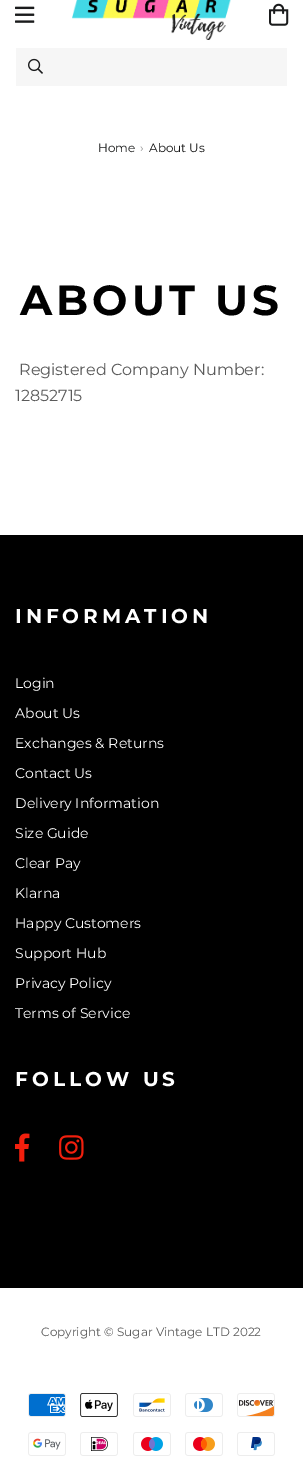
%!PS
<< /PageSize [303 1467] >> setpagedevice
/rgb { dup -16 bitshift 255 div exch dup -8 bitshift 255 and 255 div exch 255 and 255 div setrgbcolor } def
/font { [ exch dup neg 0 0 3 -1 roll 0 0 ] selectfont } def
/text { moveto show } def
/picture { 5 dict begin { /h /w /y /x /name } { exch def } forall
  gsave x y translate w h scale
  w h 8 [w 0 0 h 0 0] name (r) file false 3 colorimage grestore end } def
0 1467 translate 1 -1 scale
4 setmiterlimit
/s1 { /Montserrat-Regular 12 font 16#1B1C1C rgb } def
/s2 { /Montserrat-Regular 12 font 16#909090 rgb } def
/s3 { /Montserrat-Regular 12 font 16#151515 rgb } def
/s4 { /Montserrat-Regular 16 font 16#5B5B5B rgb } def
/s5 { /Montserrat-Regular 14 font 16#FFFFFF rgb } def
/s6 { /Montserrat-Regular 12 font 16#5B5B5B rgb } def
16#FFFFFF rgb
0 0 303 1467 rectfill
(pic1.raw) 15 6 20 17 picture
(pic2.raw) 72 0 159 40 picture
(pic3.raw) 269 3 20 23 picture
16#F6F6F6 rgb
16 48 271 38 rectfill
(pic4.raw) 28 58 15 16 picture
s1
(Home) 98 152 text
s2
(›) 140 152 text
s3
(About Us) 149 152 text
/Montserrat-Bold 42 font
16#000000 rgb
20 315 moveto 4 0 (ABOUT US) ashow
s4
(Registered Company Number:) 19 375 text
(12852715) 15 401 text
16#000000 rgb
0 535 303 753 rectfill
/Montserrat-Bold 20 font
16#FFFFFF rgb
15 623 moveto 4 0 (INFORMATION) ashow
s5
(Login) 15 688 text
(About Us) 15 718 text
(Exchanges & Returns) 15 748 text
(Contact Us) 15 778 text
(Delivery Information) 15 808 text
(Size Guide) 15 838 text
(Clear Pay) 15 868 text
(Klarna) 15 898 text
(Happy Customers) 15 928 text
(Support Hub) 15 958 text
(Privacy Policy) 15 988 text
(Terms of Service) 15 1018 text
/Montserrat-Bold 20 font
15 1086 moveto 4 0 (FOLLOW US) ashow
(pic5.raw) 15 1133 15 29 picture
(pic6.raw) 59 1135 25 25 picture
s6
(Copyright © Sugar Vintage LTD 2022) 41 1336 text
(pic7.raw) 28 1393 38 24 picture
(pic8.raw) 80 1393 38 24 picture
(pic9.raw) 133 1393 38 24 picture
(pic10.raw) 185 1393 38 24 picture
(pic11.raw) 237 1393 38 24 picture
(pic12.raw) 28 1432 38 24 picture
(pic13.raw) 80 1432 38 24 picture
(pic14.raw) 133 1432 38 24 picture
(pic15.raw) 185 1432 38 24 picture
(pic16.raw) 237 1432 38 24 picture
showpage
